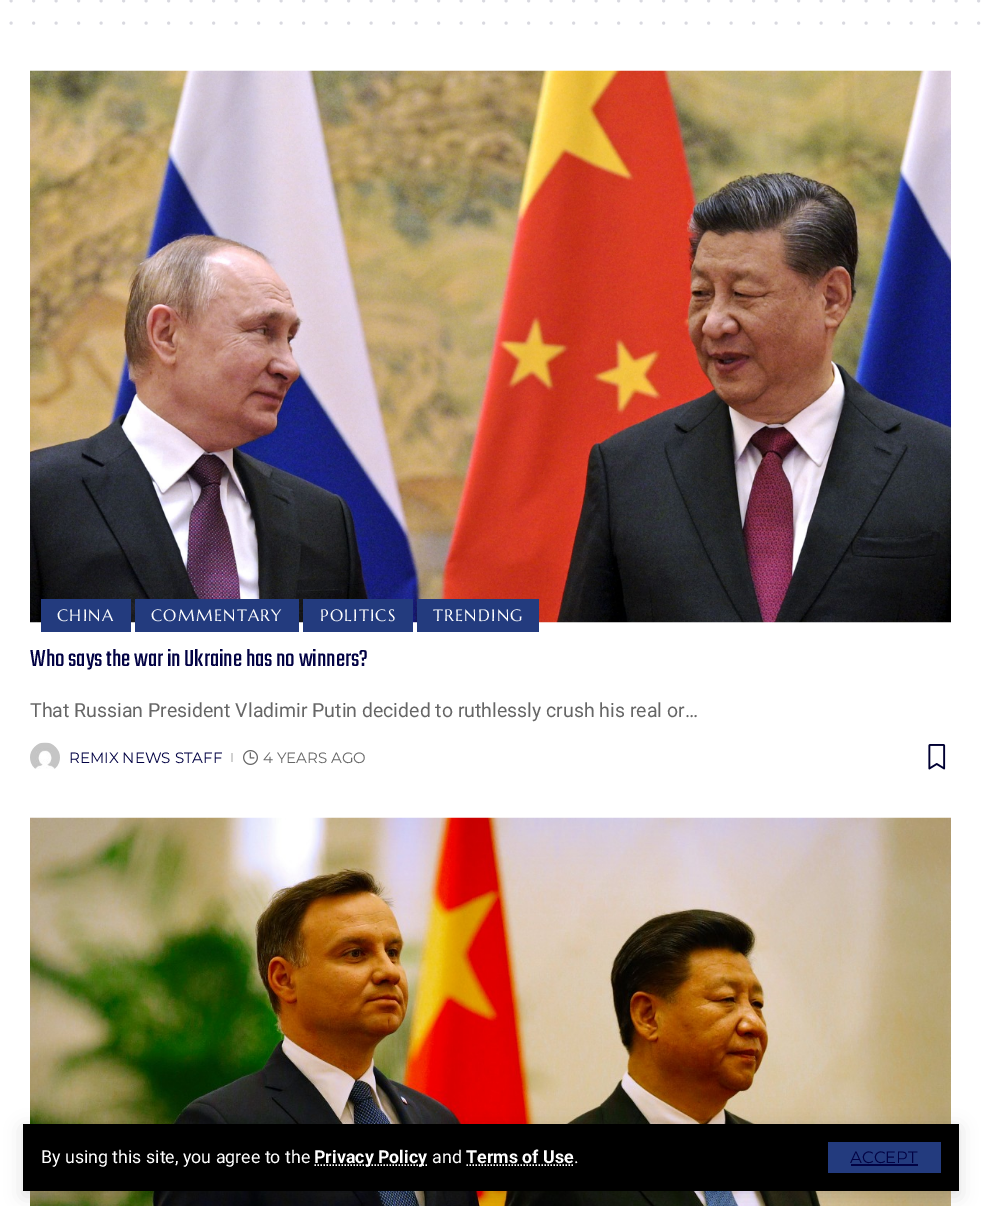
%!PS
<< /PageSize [981 1206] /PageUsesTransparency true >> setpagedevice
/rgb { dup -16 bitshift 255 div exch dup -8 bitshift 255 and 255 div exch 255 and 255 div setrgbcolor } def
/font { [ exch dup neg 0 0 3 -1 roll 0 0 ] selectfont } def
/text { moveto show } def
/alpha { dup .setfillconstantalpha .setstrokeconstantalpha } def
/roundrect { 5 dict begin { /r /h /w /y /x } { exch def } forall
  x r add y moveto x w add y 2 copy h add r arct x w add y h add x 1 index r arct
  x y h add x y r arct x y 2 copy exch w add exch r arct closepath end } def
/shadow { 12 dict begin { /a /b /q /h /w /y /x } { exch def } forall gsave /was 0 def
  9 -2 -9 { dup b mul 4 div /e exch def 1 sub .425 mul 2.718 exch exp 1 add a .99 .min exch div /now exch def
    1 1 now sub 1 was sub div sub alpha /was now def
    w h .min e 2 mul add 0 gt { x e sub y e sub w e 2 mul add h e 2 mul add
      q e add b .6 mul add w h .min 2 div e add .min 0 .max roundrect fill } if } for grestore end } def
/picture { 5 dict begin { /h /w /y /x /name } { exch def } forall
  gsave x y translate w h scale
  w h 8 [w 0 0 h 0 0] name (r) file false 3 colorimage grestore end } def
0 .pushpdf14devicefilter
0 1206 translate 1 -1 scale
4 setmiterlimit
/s1 { /Teko-Light 25.5 font 16#020244 rgb } def
/s2 { /Roboto-Regular 19.5 font 16#666666 rgb } def
/s3 { /Montserrat-Regular 15 font 16#020244 rgb } def
/s4 { /Montserrat-Regular 15 font 16#666666 rgb } def
/s5 { /Roboto-Regular 17.8 font 16#FFFFFF rgb } def
/s6 { /Roboto-Bold 17.8 font 16#FFFFFF rgb } def
/s7 { /Montserrat-Regular 16.5 font 16#020244 rgb } def
16#FFFFFF rgb
0 0 981 1206 rectfill
16#D9D9E0 rgb
3 setlinewidth
1 setlinecap
[0 22.5] 0 setdash
11.2 0.8 moveto 979.1 0.8 lineto stroke
11.2 23.2 moveto 979.1 23.2 lineto stroke
(pic1.raw) 30 70 921 553 picture
16#233B7E rgb
41 599 90 33 rectfill
/Marcellus-Regular 16.5 font
16#FFFFFF rgb
57 621 moveto 1.25 0 (CHINA) ashow
16#233B7E rgb
135 599 164 33 rectfill
16#FFFFFF rgb
151 621 moveto 1.25 0 (COMMENTARY) ashow
16#233B7E rgb
303 599 110 33 rectfill
16#FFFFFF rgb
320 621 moveto 1.25 0 (POLITICS) ashow
16#233B7E rgb
417 599 122 33 rectfill
16#FFFFFF rgb
433 621 moveto 1.25 0 (TRENDING) ashow
s1
(Who says the war in Ukraine has no winners?) 30 666 text
s2
(That Russian President Vladimir Putin decided to ruthlessly crush his real or…) 30 717 text
(pic2.raw) 30 742 30 27 picture
s3
(REMIX NEWS STAFF) 69 763 text
16#D1D1D1 rgb
231 753 2 9 rectfill
(pic3.raw) 243 750 15 15 picture
s4
(4 YEARS AGO) 263 763 text
(pic4.raw) 928 744 18 26 picture
(pic5.raw) 30 817 921 389 picture
16#000000 rgb
23 1128 936 68 0 9 0.12 shadow
23 1124 936 67 rectfill
s5
(By using this site, you agree to the) 41 1163 text
1.5 setlinewidth
0 setlinecap
[1.5 1.5] 0 setdash
314.5 1165 moveto 428 1165 lineto stroke
s6
(Privacy Policy) 314 1163 text
s5
(and) 432 1163 text
s6
(Terms of Use) 466 1163 text
466.5 1165 moveto 574 1165 lineto stroke
s5
(.) 574 1163 text
16#233B7E rgb
828 1142 113 31 rectfill
s7
(ACCEPT) 850 1163 text
851 1164 67 2 rectfill
.poppdf14devicefilter showpage
